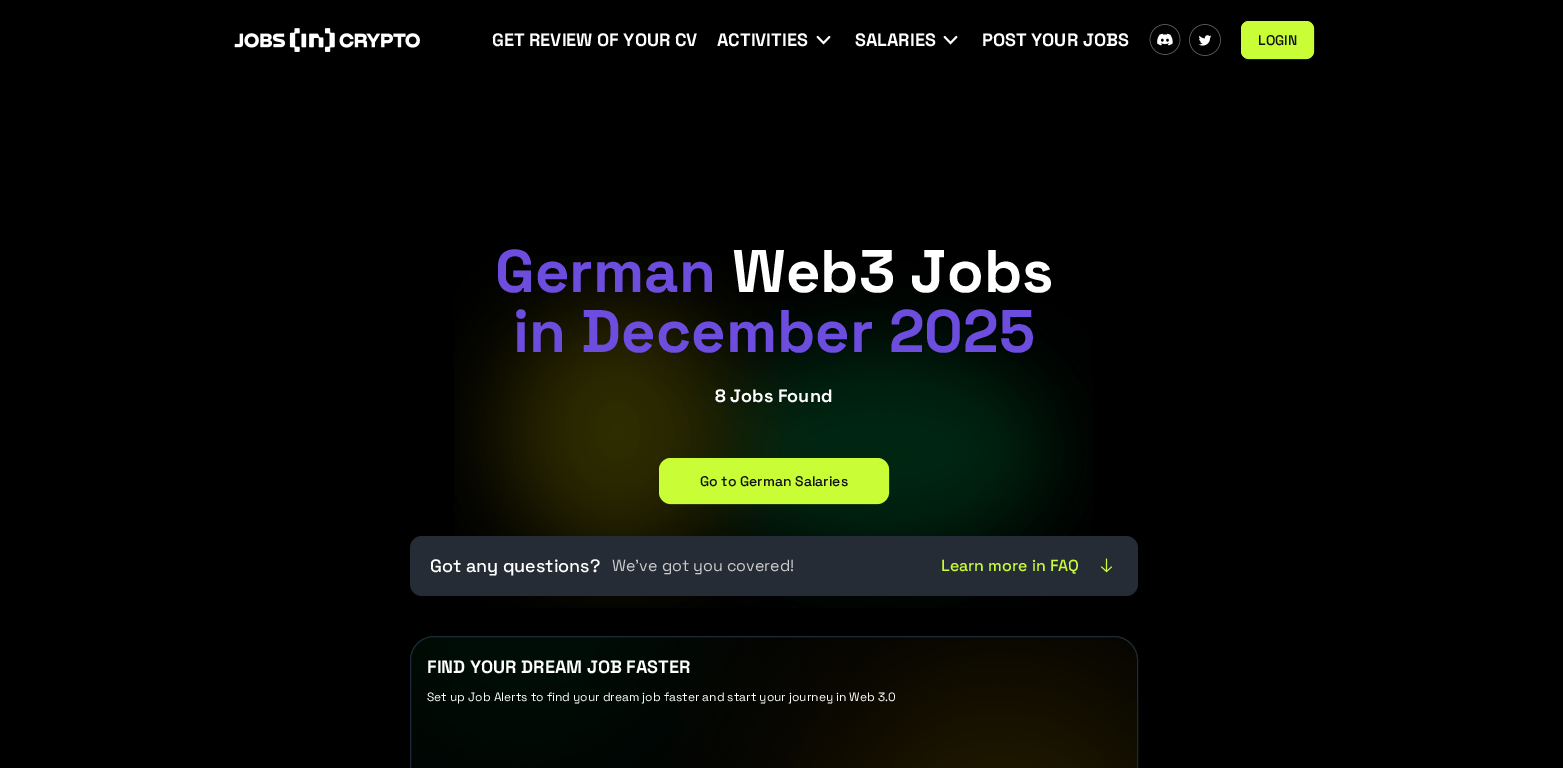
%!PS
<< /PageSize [1563 768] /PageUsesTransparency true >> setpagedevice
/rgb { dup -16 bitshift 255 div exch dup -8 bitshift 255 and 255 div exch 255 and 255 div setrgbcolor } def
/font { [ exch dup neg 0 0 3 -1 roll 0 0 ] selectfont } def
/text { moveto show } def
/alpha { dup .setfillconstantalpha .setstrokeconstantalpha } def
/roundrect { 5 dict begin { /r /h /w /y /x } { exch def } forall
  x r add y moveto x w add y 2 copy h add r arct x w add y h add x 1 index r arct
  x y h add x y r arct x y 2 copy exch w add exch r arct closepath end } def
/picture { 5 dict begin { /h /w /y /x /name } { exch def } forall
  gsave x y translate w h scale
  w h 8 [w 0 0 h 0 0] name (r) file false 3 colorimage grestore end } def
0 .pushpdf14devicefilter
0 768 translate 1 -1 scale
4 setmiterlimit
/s1 { /SpaceGrotesk-Bold 18 font 16#FFFFFF rgb } def
/s2 { /SpaceGrotesk-Medium 14 font 16#121212 rgb } def
/s3 { /SpaceGrotesk-Bold 60 font 16#6D4DDD rgb } def
/s4 { /SpaceGrotesk-Bold 60 font 16#FFFFFF rgb } def
/s5 { /SpaceGrotesk-Medium 18 font 16#FFFFFF rgb } def
/s6 { /SpaceGrotesk-Regular 16 font 16#CCCCCC rgb } def
/s7 { /SpaceGrotesk-Medium 16 font 16#C9FD35 rgb } def
/s8 { /SpaceGrotesk-Regular 12 font 16#FFFFFF rgb } def
16#000000 rgb
0 0 1563 768 rectfill
(pic1.raw) 234 28 186 24 picture
s1
(GET REVIEW OF YOUR CV) 492 46 text
(ACTIVITIES) 717 46 text
(pic2.raw) 816 35 15 10 picture
(SALARIES) 855 46 text
(pic2.raw) 943 35 15 10 picture
(POST YOUR JOBS) 982 46 text
(pic3.raw) 1149 24 32 31 picture
(pic4.raw) 1189 24 32 32 picture
16#C9FD35 rgb
1241 21 73 38 8 roundrect fill
0.5 alpha
1241.5 21.5 72 37 7.5 roundrect stroke
1 alpha
s2
(LOGIN) 1258 45 text
(pic5.raw) 454 256 639 352 picture
s3
(German) 495 292 text
s4
(Web3 Jobs) 732 292 text
s3
(in December 2025) 513 352 text
s1
(8 Jobs Found) 715 402 text
16#C9FD35 rgb
659 458 230 46 12 roundrect fill
0.5 alpha
659.5 458.5 229 45 11.5 roundrect stroke
1 alpha
s2
(Go to German Salaries) 700 486 text
16#252C35 rgb
410 536 728 60 12 roundrect fill
s5
(Got any questions?) 430 572 text
s6
(We’ve got you covered!) 612 571 text
s7
(Learn more in FAQ) 941 571 text
(pic6.raw) 1100 558 13 15 picture
(pic7.raw) 411 636 726 132 picture
16#1F2937 rgb
410.5 636.5 727 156 23.5 roundrect stroke
s1
(FIND YOUR DREAM JOB FASTER) 427 673 text
s8
(Set up Job Alerts to find your dream job faster and start your journey in Web 3.0) 427 701 text
.poppdf14devicefilter showpage
